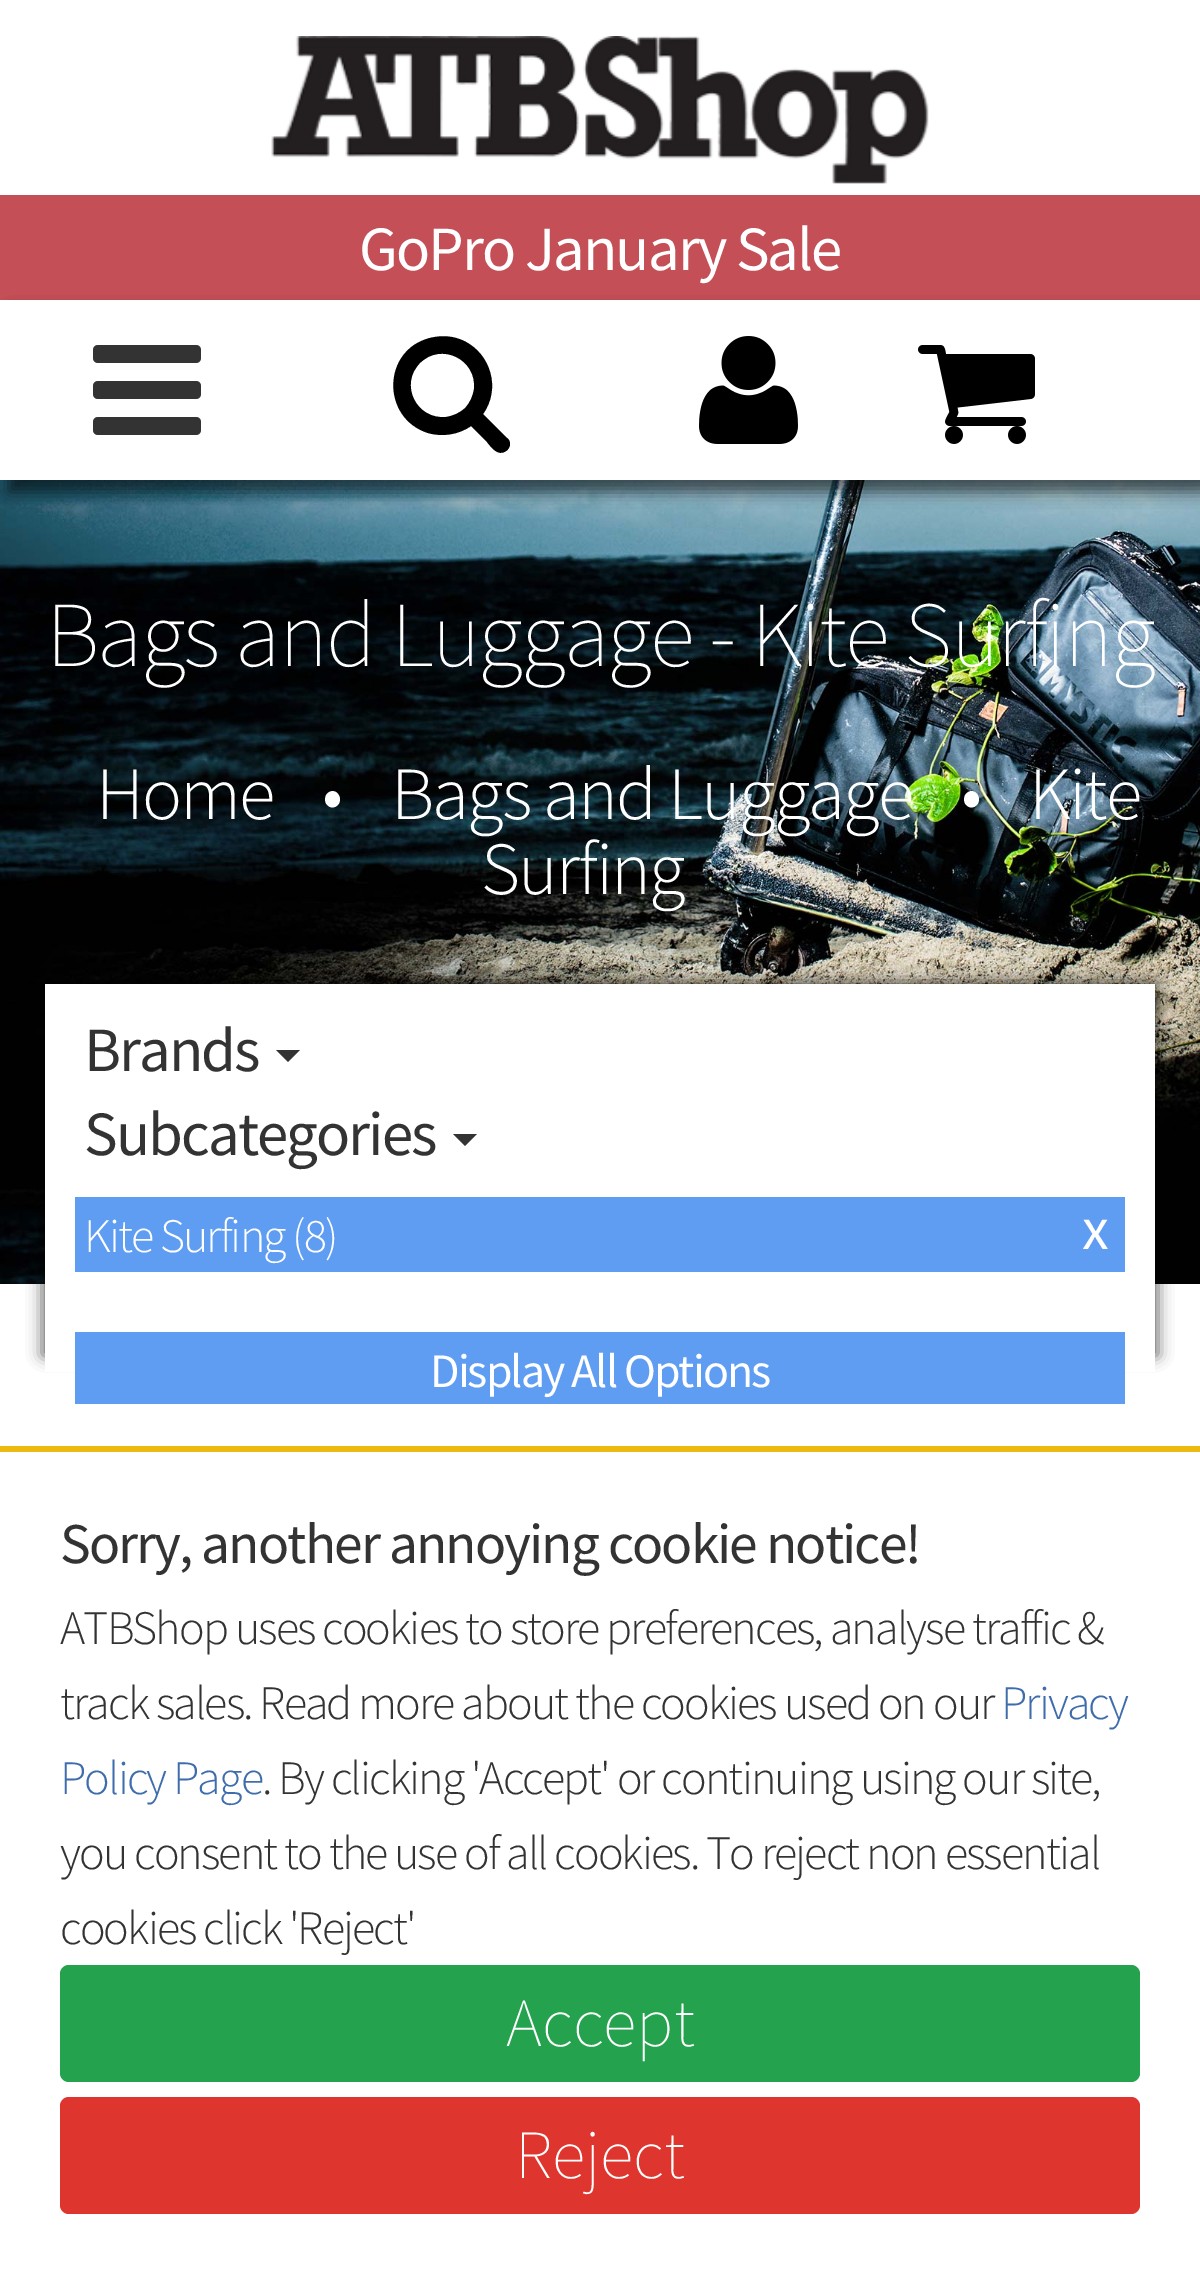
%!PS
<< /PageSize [1200 2274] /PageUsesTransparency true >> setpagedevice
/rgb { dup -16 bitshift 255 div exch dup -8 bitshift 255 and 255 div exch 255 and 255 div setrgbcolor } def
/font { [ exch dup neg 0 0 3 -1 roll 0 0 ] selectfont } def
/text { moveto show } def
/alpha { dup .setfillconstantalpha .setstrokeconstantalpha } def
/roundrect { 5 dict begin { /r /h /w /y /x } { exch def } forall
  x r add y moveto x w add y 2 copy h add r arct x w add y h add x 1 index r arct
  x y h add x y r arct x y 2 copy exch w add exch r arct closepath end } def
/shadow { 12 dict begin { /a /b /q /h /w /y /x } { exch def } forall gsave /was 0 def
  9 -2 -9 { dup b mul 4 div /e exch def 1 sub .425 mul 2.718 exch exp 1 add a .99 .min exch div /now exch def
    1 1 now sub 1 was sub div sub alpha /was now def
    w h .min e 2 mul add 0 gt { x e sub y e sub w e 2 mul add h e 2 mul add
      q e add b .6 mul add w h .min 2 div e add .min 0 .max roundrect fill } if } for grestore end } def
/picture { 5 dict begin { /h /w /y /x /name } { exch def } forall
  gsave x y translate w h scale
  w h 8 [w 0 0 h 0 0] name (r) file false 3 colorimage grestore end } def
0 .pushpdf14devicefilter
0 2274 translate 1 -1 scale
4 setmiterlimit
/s1 { /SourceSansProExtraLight-ExtraLight 69 font 16#FFFFFF rgb } def
16#FFFFFF rgb
0 0 1200 2274 rectfill
(pic1.raw) 271 36 658 148 picture
16#C44F57 rgb
0 195 1200 105 rectfill
/SourceSansPro-Regular 63 font
16#FFFFFF rgb
359 270 moveto -1.92 0 (GoPro January Sale) ashow
(pic5.raw) 0 480 1200 804 picture
gsave
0 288 moveto 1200 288 lineto 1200 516 lineto 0 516 lineto closepath 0 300 moveto 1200 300 lineto 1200 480 lineto 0 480 lineto closepath eoclip newpath
16#000000 rgb
9 312 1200 180 0 7.5 0.58 shadow
grestore
(pic2.raw) 93 345 108 90 picture
16#000000 rgb
465 408 moveto 470 403 473 396 474 389 curveto 477 359 441 342 420 363 curveto 399 384 416 420 446 417 curveto 453 416 460 413 465 408 curveto closepath 510 444 moveto 510 447 508 450 506 451 curveto 498 457 491 447 487 442 curveto 471 426 lineto 458 435 442 437 428 433 curveto 381 418 382 350 430 338 curveto 442 335 454 336 464 341 curveto 491 354 501 389 483 414 curveto 507 438 lineto 509 439 510 442 510 444 curveto closepath fill
(pic3.raw) 699 336 99 108 picture
(pic4.raw) 918 345 117 99 picture
/SourceSansProExtraLight-ExtraLight 93 font
16#FFFFFF rgb
46 666 moveto -1.92 0 (Bags and Luggage - Kite Surfing) ashow
/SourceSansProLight-Light 75 font
96 819 moveto -1.92 0 (Home) ashow
322 819 moveto -1.92 0 (•) ashow
391 819 moveto -1.92 0 (Bags and Luggage) ashow
961 819 moveto -1.92 0 (•) ashow
1029 819 moveto -1.92 0 (Kite) ashow
481 894 moveto -1.92 0 (Surfing) ashow
16#000000 rgb
42 981 1116 375 0 7.5 0.58 shadow
16#FFFFFF rgb
45 984 1110 388 rectfill
/SourceSansPro-Regular 63 font
16#333333 rgb
84 1071 moveto -1.92 0 (Brands) ashow
276 1050 moveto 300 1050 lineto 288 1062 lineto closepath fill
84 1155 moveto -1.92 0 (Subcategories) ashow
453 1134 moveto 477 1134 lineto 465 1146 lineto closepath fill
16#5F9DF2 rgb
75 1197 1050 75 rectfill
/SourceSansProLight-Light 48 font
16#FFFFFF rgb
84 1252 moveto -1.92 0 (Kite Surfing \(8\)) ashow
/SourceSansPro-Regular 60 font
1082 1249 moveto -1.92 0 (x) ashow
16#5F9DF2 rgb
75 1332 1050 72 rectfill
/SourceSansPro-Regular 48 font
16#FFFFFF rgb
430 1387 moveto -1.92 0 (Display All Options) ashow
16#ECBA10 rgb
0 1446 1200 6 rectfill
/SourceSansPro-Regular 57.6 font
16#333333 rgb
60 1563 moveto -1.92 0 (Sorry, another annoying cookie notice!) ashow
/SourceSansProLight-Light 48 font
60 1644 moveto -1.92 0 (ATBShop uses cookies to store preferences, analyse traffic &) ashow
60 1719 moveto -1.92 0 (track sales. Read more about the cookies used on our) ashow
16#3F6DAC rgb
1001 1719 moveto -1.92 0 (Privacy) ashow
60 1794 moveto -1.92 0 (Policy Page) ashow
16#333333 rgb
262 1794 moveto -1.92 0 (. By clicking 'Accept' or continuing using our site,) ashow
60 1869 moveto -1.92 0 (you consent to the use of all cookies. To reject non essential) ashow
60 1944 moveto -1.92 0 (cookies click 'Reject') ashow
16#25A24E rgb
60 1965 1080 117 9 roundrect fill
s1
(Accept) 506 2046 text
16#DE352E rgb
60 2097 1080 117 9 roundrect fill
s1
(Reject) 515 2178 text
.poppdf14devicefilter showpage
